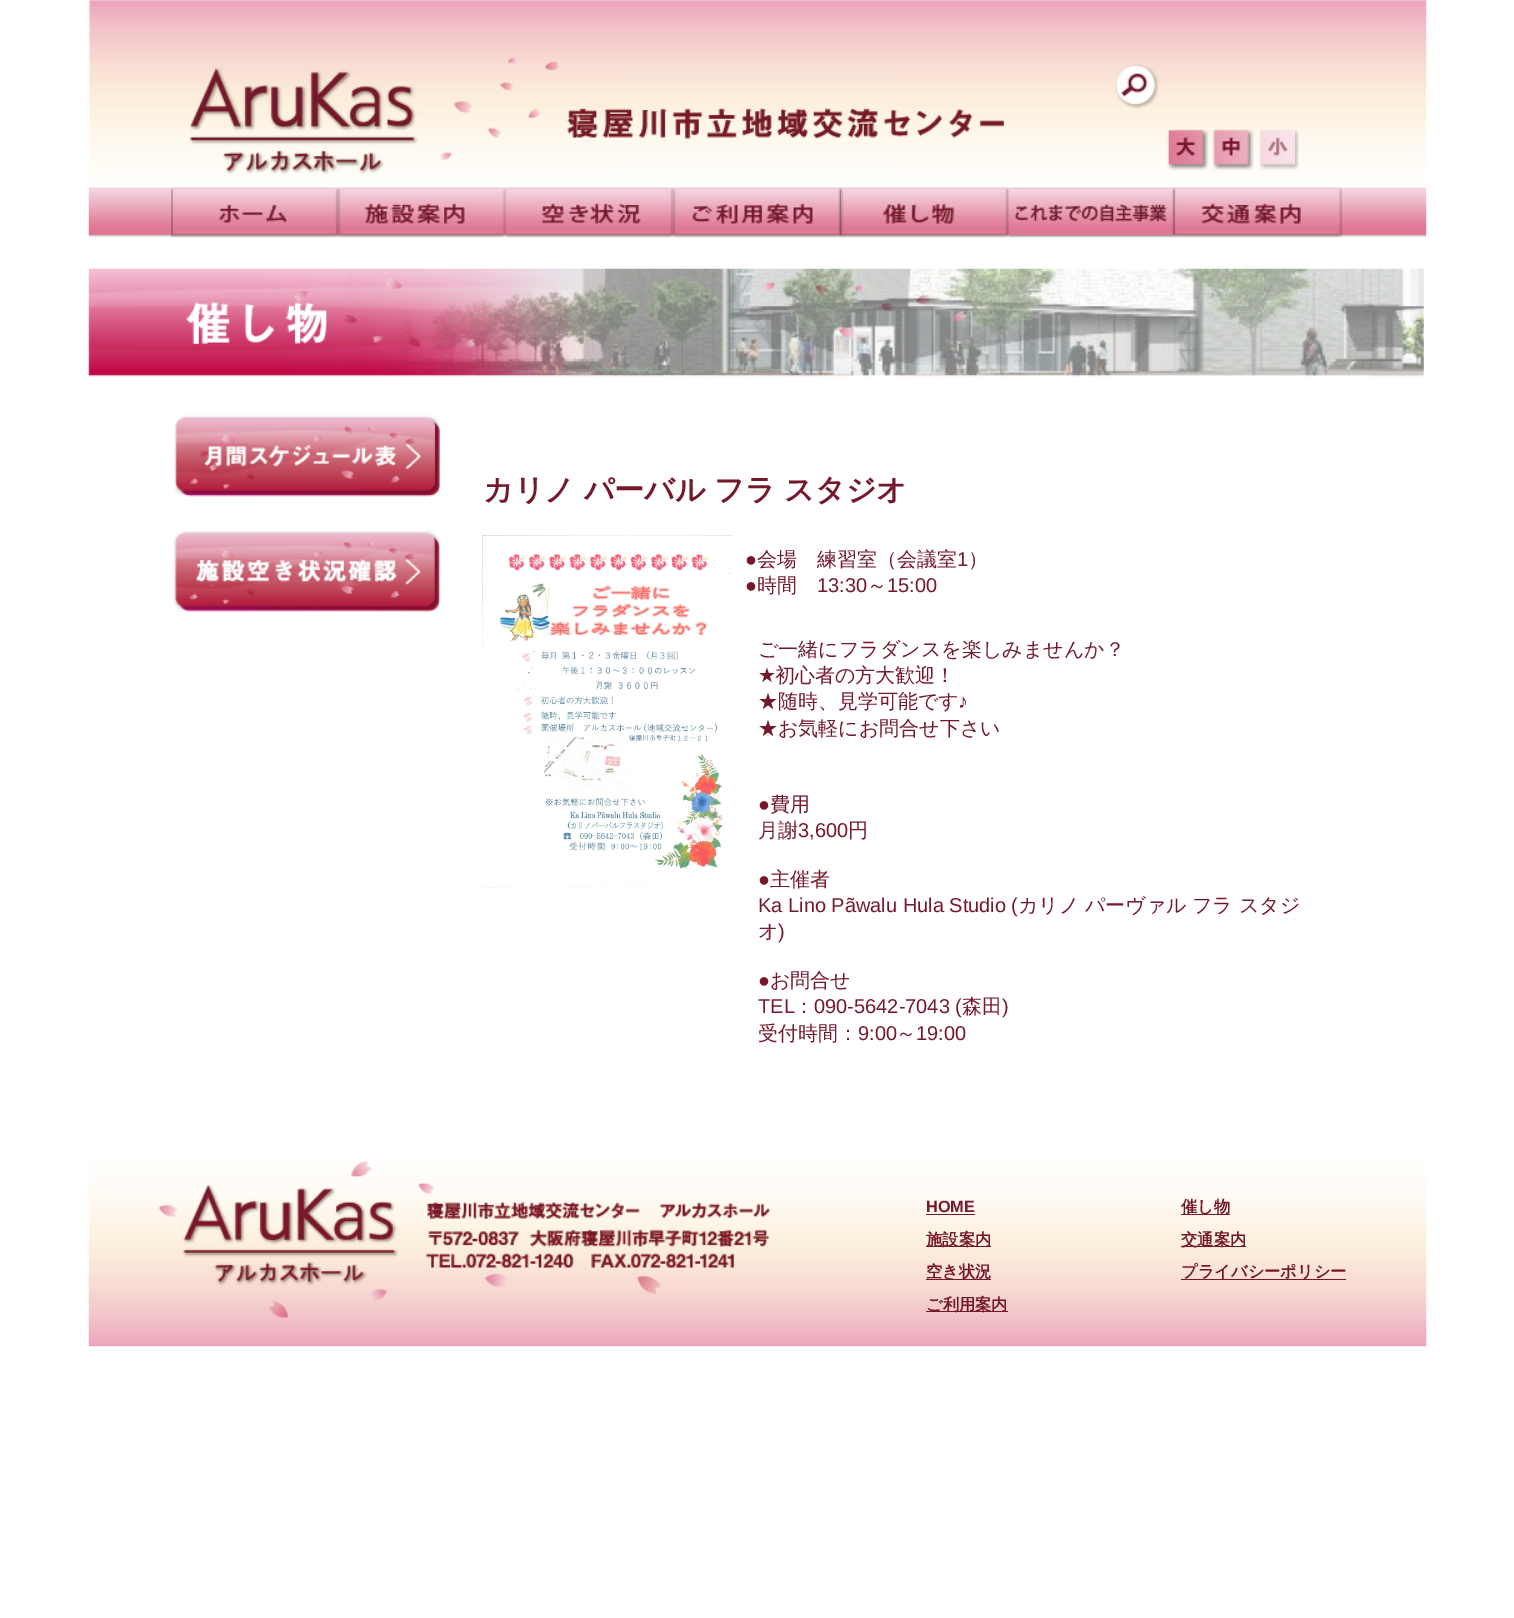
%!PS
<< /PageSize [1514 1618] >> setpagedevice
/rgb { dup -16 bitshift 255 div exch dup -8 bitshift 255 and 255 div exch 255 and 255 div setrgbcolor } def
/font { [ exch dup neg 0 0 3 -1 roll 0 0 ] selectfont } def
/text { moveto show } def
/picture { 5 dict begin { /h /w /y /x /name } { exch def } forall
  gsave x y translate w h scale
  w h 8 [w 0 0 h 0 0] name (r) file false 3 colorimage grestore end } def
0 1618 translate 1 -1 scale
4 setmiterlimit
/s1 { /LiberationSans-Regular 20 font 16#75182B rgb } def
/s2 { /WenQuanYiZenHei-Medium 20 font 16#75182B rgb } def
/s3 { /DejaVuSans-Regular 20 font 16#75182B rgb } def
/s4 { /LiberationSans-Bold 16.25 font 16#75182B rgb } def
/s5 { /WenQuanYiZenHei-Bold 16.25 font 16#75182B rgb } def
16#FFFFFF rgb
0 0 1514 1618 rectfill
(pic1.raw) 88 0 1339 186 picture
(pic2.raw) 1115 64 44 45 picture
(pic3.raw) 1167 129 42 42 picture
(pic4.raw) 1212 129 42 42 picture
(pic5.raw) 1259 129 40 41 picture
(pic6.raw) 88 187 1339 51 picture
(pic7.raw) 171 187 168 51 picture
(pic8.raw) 338 187 169 51 picture
(pic9.raw) 506 187 168 51 picture
(pic10.raw) 673 187 169 51 picture
(pic11.raw) 841 187 168 51 picture
(pic12.raw) 1008 187 167 51 picture
(pic13.raw) 1175 187 168 51 picture
(pic14.raw) 88 268 1336 109 picture
(pic15.raw) 174 415 266 82 picture
(pic16.raw) 173 530 267 82 picture
/WenQuanYiZenHei-Bold 30 font
16#75182B rgb
483 500 moveto -0.5 0 32 (カリノ パーバル フラ スタジオ) widthshow
(pic17.raw) 482 535 251 353 picture
s1
(●) 745 566 text
s2
(会場　練習室（会議室) 757 566 text
s1
(1) 957 566 text
s2
(）) 968 566 text
s1
(●) 745 592 text
s2
(時間) 757 592 text
s1
(13:30) 817 592 text
s2
(～) 867 592 text
s1
(15:00) 887 592 text
s2
(ご一緒にフラダンスを楽しみませんか？) 758 656 text
s3
(★) 758 682 text
s2
(初心者の方大歓迎！) 775 682 text
(★随時、見学可能です) 758 708 text
s1
(♪) 958 708 text
s2
(★お気軽にお問合せ下さい) 758 735 text
s1
(●) 758 811 text
s2
(費用) 770 811 text
(月謝) 758 837 text
s1
(3,600) 798 837 text
s2
(円) 848 837 text
s1
(●) 758 886 text
s2
(主催者) 770 886 text
s1
(Ka Lino Pãwalu Hula Studio \() 758 912 text
s2
(カリノ) 1018 912 text
(パーヴァル) 1085 912 text
(フラ) 1192 912 text
(スタジ) 1239 912 text
(オ) 758 938 text
s1
(\)) 778 938 text
(●) 758 987 text
s2
(お問合せ) 770 987 text
s1
(TEL) 758 1013 text
s2
(：) 794 1013 text
s1
(090-5642-7043 \() 814 1013 text
s2
(森田) 962 1013 text
s1
(\)) 1002 1013 text
s2
(受付時間：) 758 1040 text
s1
(9:00) 858 1040 text
s2
(～) 896 1040 text
s1
(19:00) 916 1040 text
(pic18.raw) 88 1161 1339 186 picture
s4
(HOME) 926 1212 text
926 1214 49 1 rectfill
926 1246 65 1 rectfill
s5
(施設案内) 926 1245 text
926 1279 65 1 rectfill
(空き状況) 926 1277 text
926 1311 82 1 rectfill
(ご利用案内) 926 1310 text
1181 1214 49 1 rectfill
(催し物) 1181 1212 text
1181 1246 65 1 rectfill
(交通案内) 1181 1245 text
1181 1279 165 1 rectfill
(プライバシーポリシー) 1181 1277 text
showpage
